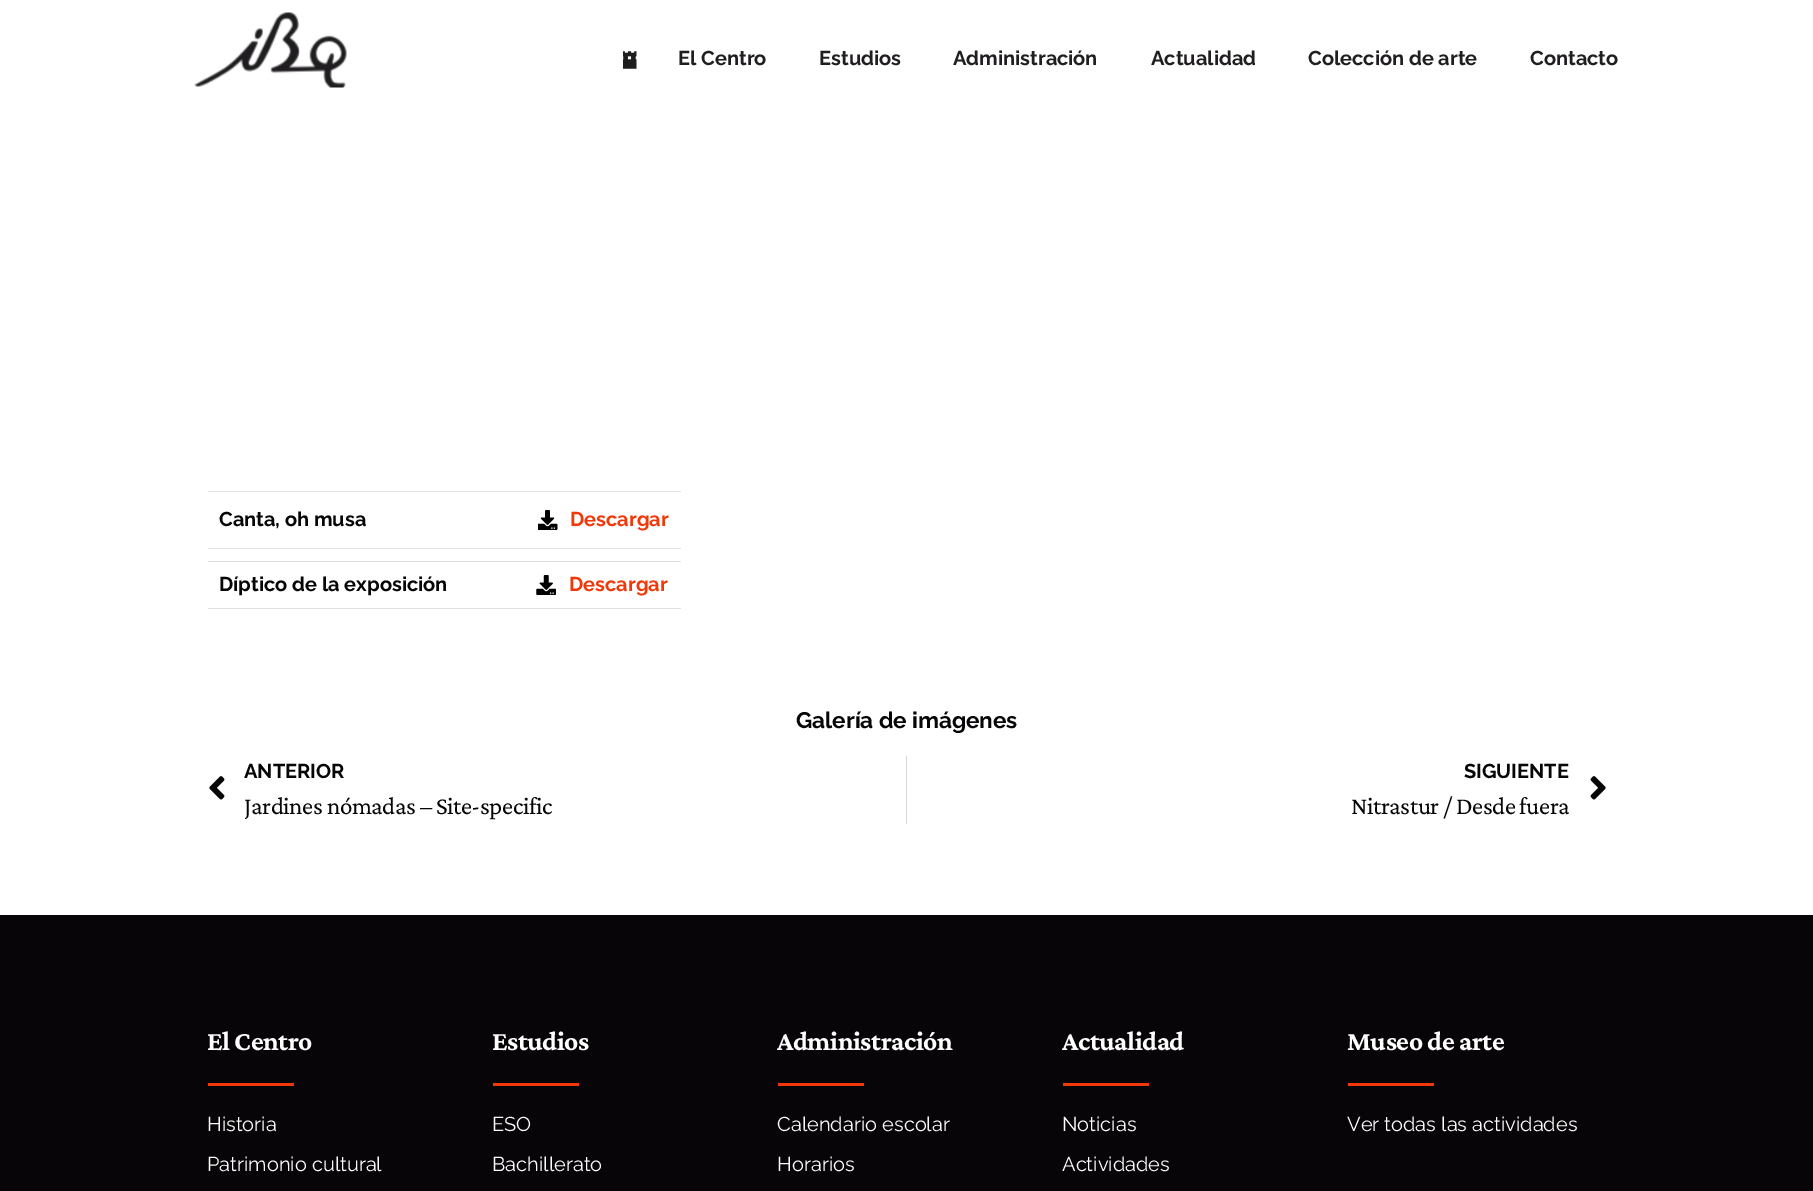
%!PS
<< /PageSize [1813 1191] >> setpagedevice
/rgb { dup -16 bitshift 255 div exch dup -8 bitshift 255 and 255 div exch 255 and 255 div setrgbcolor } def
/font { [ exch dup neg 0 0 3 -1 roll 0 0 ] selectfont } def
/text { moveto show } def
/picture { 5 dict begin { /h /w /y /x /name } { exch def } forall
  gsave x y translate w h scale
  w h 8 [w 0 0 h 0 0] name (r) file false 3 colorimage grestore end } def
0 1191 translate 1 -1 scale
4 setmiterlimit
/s1 { /Raleway-Bold 20 font 16#201E20 rgb } def
/s2 { /Raleway-Bold 20 font 16#070507 rgb } def
/s3 { /Raleway-Bold 20 font 16#F23809 rgb } def
/s4 { /Raleway-Bold 22.5 font 16#070507 rgb } def
/s5 { /Raleway-Regular 20 font 16#FFFFFF rgb } def
16#FFFFFF rgb
0 0 1813 1191 rectfill
(pic1.raw) 194 12 153 76 picture
(pic2.raw) 623 51 14 18 picture
s1
(El Centro) 678 65 text
(Estudios) 819 65 text
(Administración) 953 65 text
(Actualidad) 1151 65 text
(Colección de arte) 1308 65 text
(Contacto) 1530 65 text
16#E1E1E1 rgb
208 491 473 1 rectfill
208 548 473 1 rectfill
s2
(Canta, oh musa) 219 526 text
(pic3.raw) 538 510 20 20 picture
s3
(Descargar) 570 526 text
16#E1E1E1 rgb
208 561 473 1 rectfill
208 608 473 1 rectfill
s2
(Díptico de la exposición) 219 591 text
(pic4.raw) 536 575 20 20 picture
s3
(Descargar) 569 591 text
s4
(Galería de imágenes) 796 728 text
(pic5.raw) 209 776 16 24 picture
s2
(ANTERIOR) 244 778 text
gsave
245 786 308 38 rectclip
/CrimsonPro-Regular 25 font
244 814 moveto -0.45 0 (Jardines nómadas – Site-specific) ashow
grestore
16#D5D8DC rgb
906 756 1 68 rectfill
s2
(SIGUIENTE) 1464 778 text
/CrimsonPro-Regular 25 font
1351 814 moveto -0.45 0 (Nitrastur / Desde fuera) ashow
(pic6.raw) 1590 776 16 24 picture
0 915 1813 276 rectfill
/CrimsonPro-Bold 27.5 font
16#FFFFFF rgb
207 1050 moveto -0.5 0 (El Centro) ashow
16#F23809 rgb
208 1083 86 3 rectfill
s5
(Historia) 207 1131 text
(Patrimonio cultural) 207 1171 text
/CrimsonPro-Bold 27.5 font
492 1050 moveto -0.5 0 (Estudios) ashow
16#F23809 rgb
493 1083 86 3 rectfill
s5
(ESO) 492 1131 text
(Bachillerato) 492 1171 text
/CrimsonPro-Bold 27.5 font
777 1050 moveto -0.5 0 (Administración) ashow
16#F23809 rgb
778 1083 86 3 rectfill
s5
(Calendario escolar) 777 1131 text
(Horarios) 777 1171 text
/CrimsonPro-Bold 27.5 font
1062 1050 moveto -0.5 0 (Actualidad) ashow
16#F23809 rgb
1063 1083 86 3 rectfill
s5
(Noticias) 1062 1131 text
(Actividades) 1062 1171 text
/CrimsonPro-Bold 27.5 font
1347 1050 moveto -0.5 0 (Museo de arte) ashow
16#F23809 rgb
1348 1083 86 3 rectfill
s5
(Ver todas las actividades) 1347 1131 text
showpage
